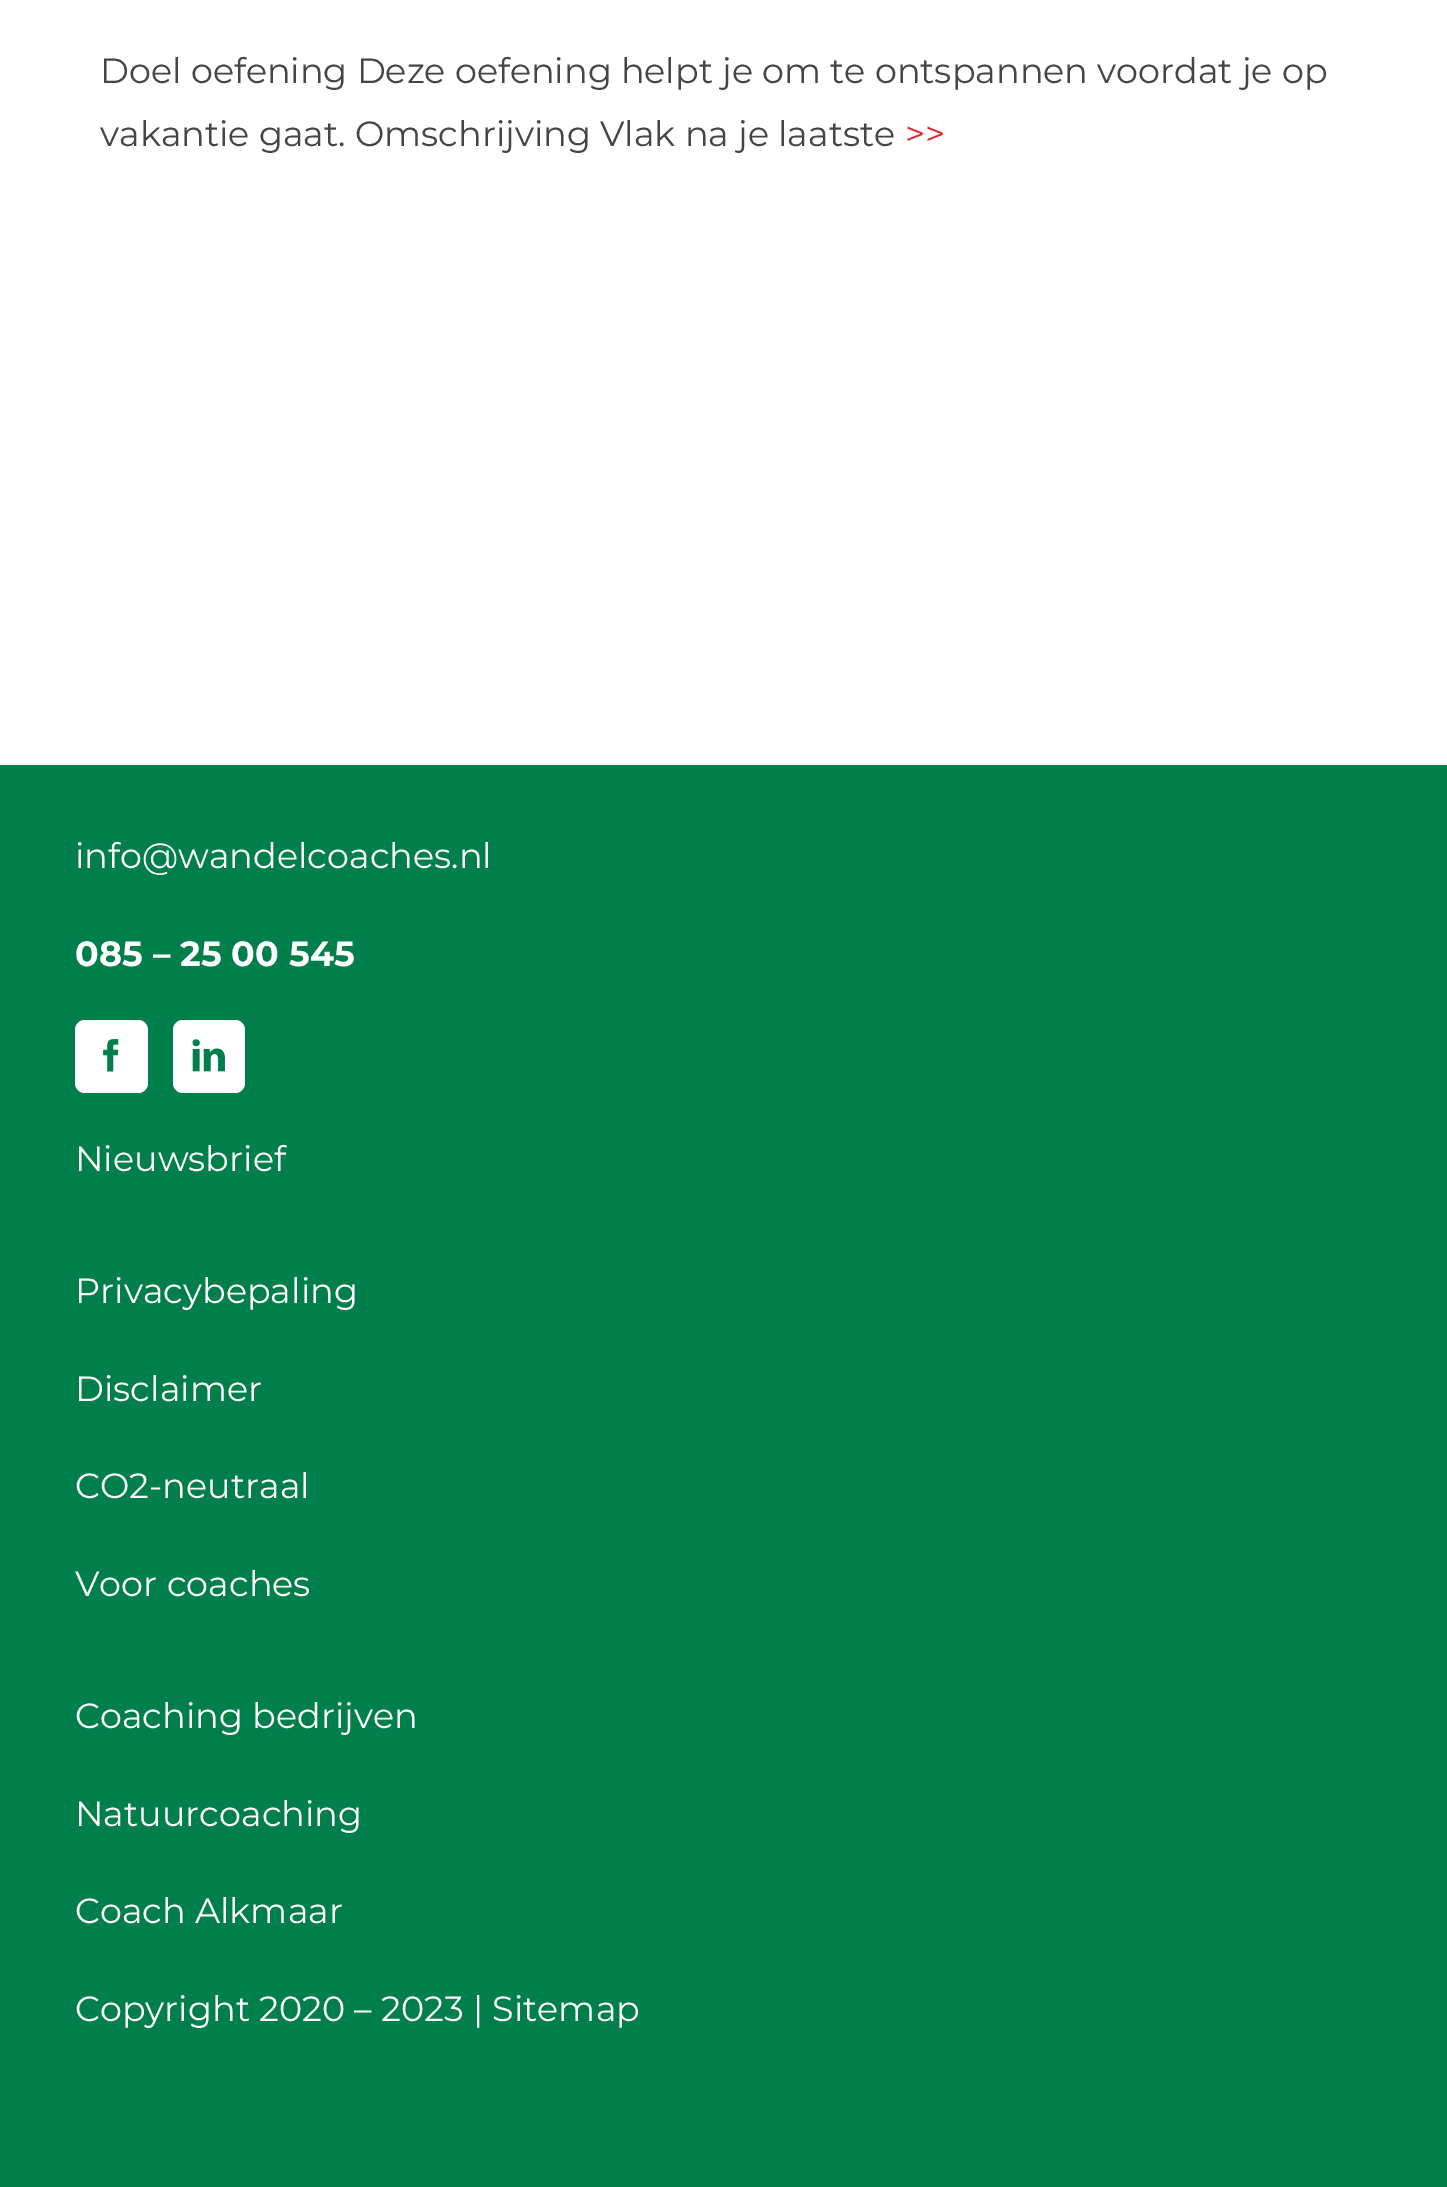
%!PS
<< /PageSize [1447 2187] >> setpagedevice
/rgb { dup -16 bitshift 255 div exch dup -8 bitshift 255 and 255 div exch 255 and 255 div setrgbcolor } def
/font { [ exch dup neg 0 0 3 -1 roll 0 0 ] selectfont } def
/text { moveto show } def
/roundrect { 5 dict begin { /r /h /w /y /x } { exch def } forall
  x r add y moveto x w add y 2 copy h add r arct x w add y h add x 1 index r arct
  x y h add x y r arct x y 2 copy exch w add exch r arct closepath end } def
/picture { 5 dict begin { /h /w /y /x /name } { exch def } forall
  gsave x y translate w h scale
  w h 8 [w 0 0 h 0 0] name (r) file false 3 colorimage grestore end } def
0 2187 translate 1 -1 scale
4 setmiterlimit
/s1 { /Montserrat-Regular 35 font 16#454545 rgb } def
/s2 { /Montserrat-Regular 35 font 16#ED2231 rgb } def
/s3 { /Montserrat-Regular 35 font 16#FFFFFF rgb } def
/s4 { /Montserrat-Bold 35 font 16#FFFFFF rgb } def
16#FFFFFF rgb
0 0 1447 2187 rectfill
s1
(Doel oefening Deze oefening helpt je om te ontspannen voordat je op) 100 83 text
(vakantie gaat. Omschrijving Vlak na je laatste) 100 146 text
s2
(>>) 905 146 text
16#007F4B rgb
0 765 1447 1422 rectfill
s3
(info@wandelcoaches.nl) 75 868 text
s4
(085 – 25 00 545) 75 966 text
75 1020 73 73 10 roundrect fill
(pic1.raw) 103 1039 16 33 picture
173 1020 72 73 10 roundrect fill
(pic2.raw) 192 1039 33 33 picture
s3
(Nieuwsbrief) 75 1171 text
(Privacybepaling) 75 1303 text
(Disclaimer) 75 1401 text
(CO2-neutraal) 75 1498 text
(Voor coaches) 75 1596 text
(Coaching bedrijven) 75 1728 text
(Natuurcoaching) 75 1826 text
(Coach Alkmaar) 75 1923 text
(Copyright 2020 – 2023 | Sitemap) 75 2021 text
showpage
